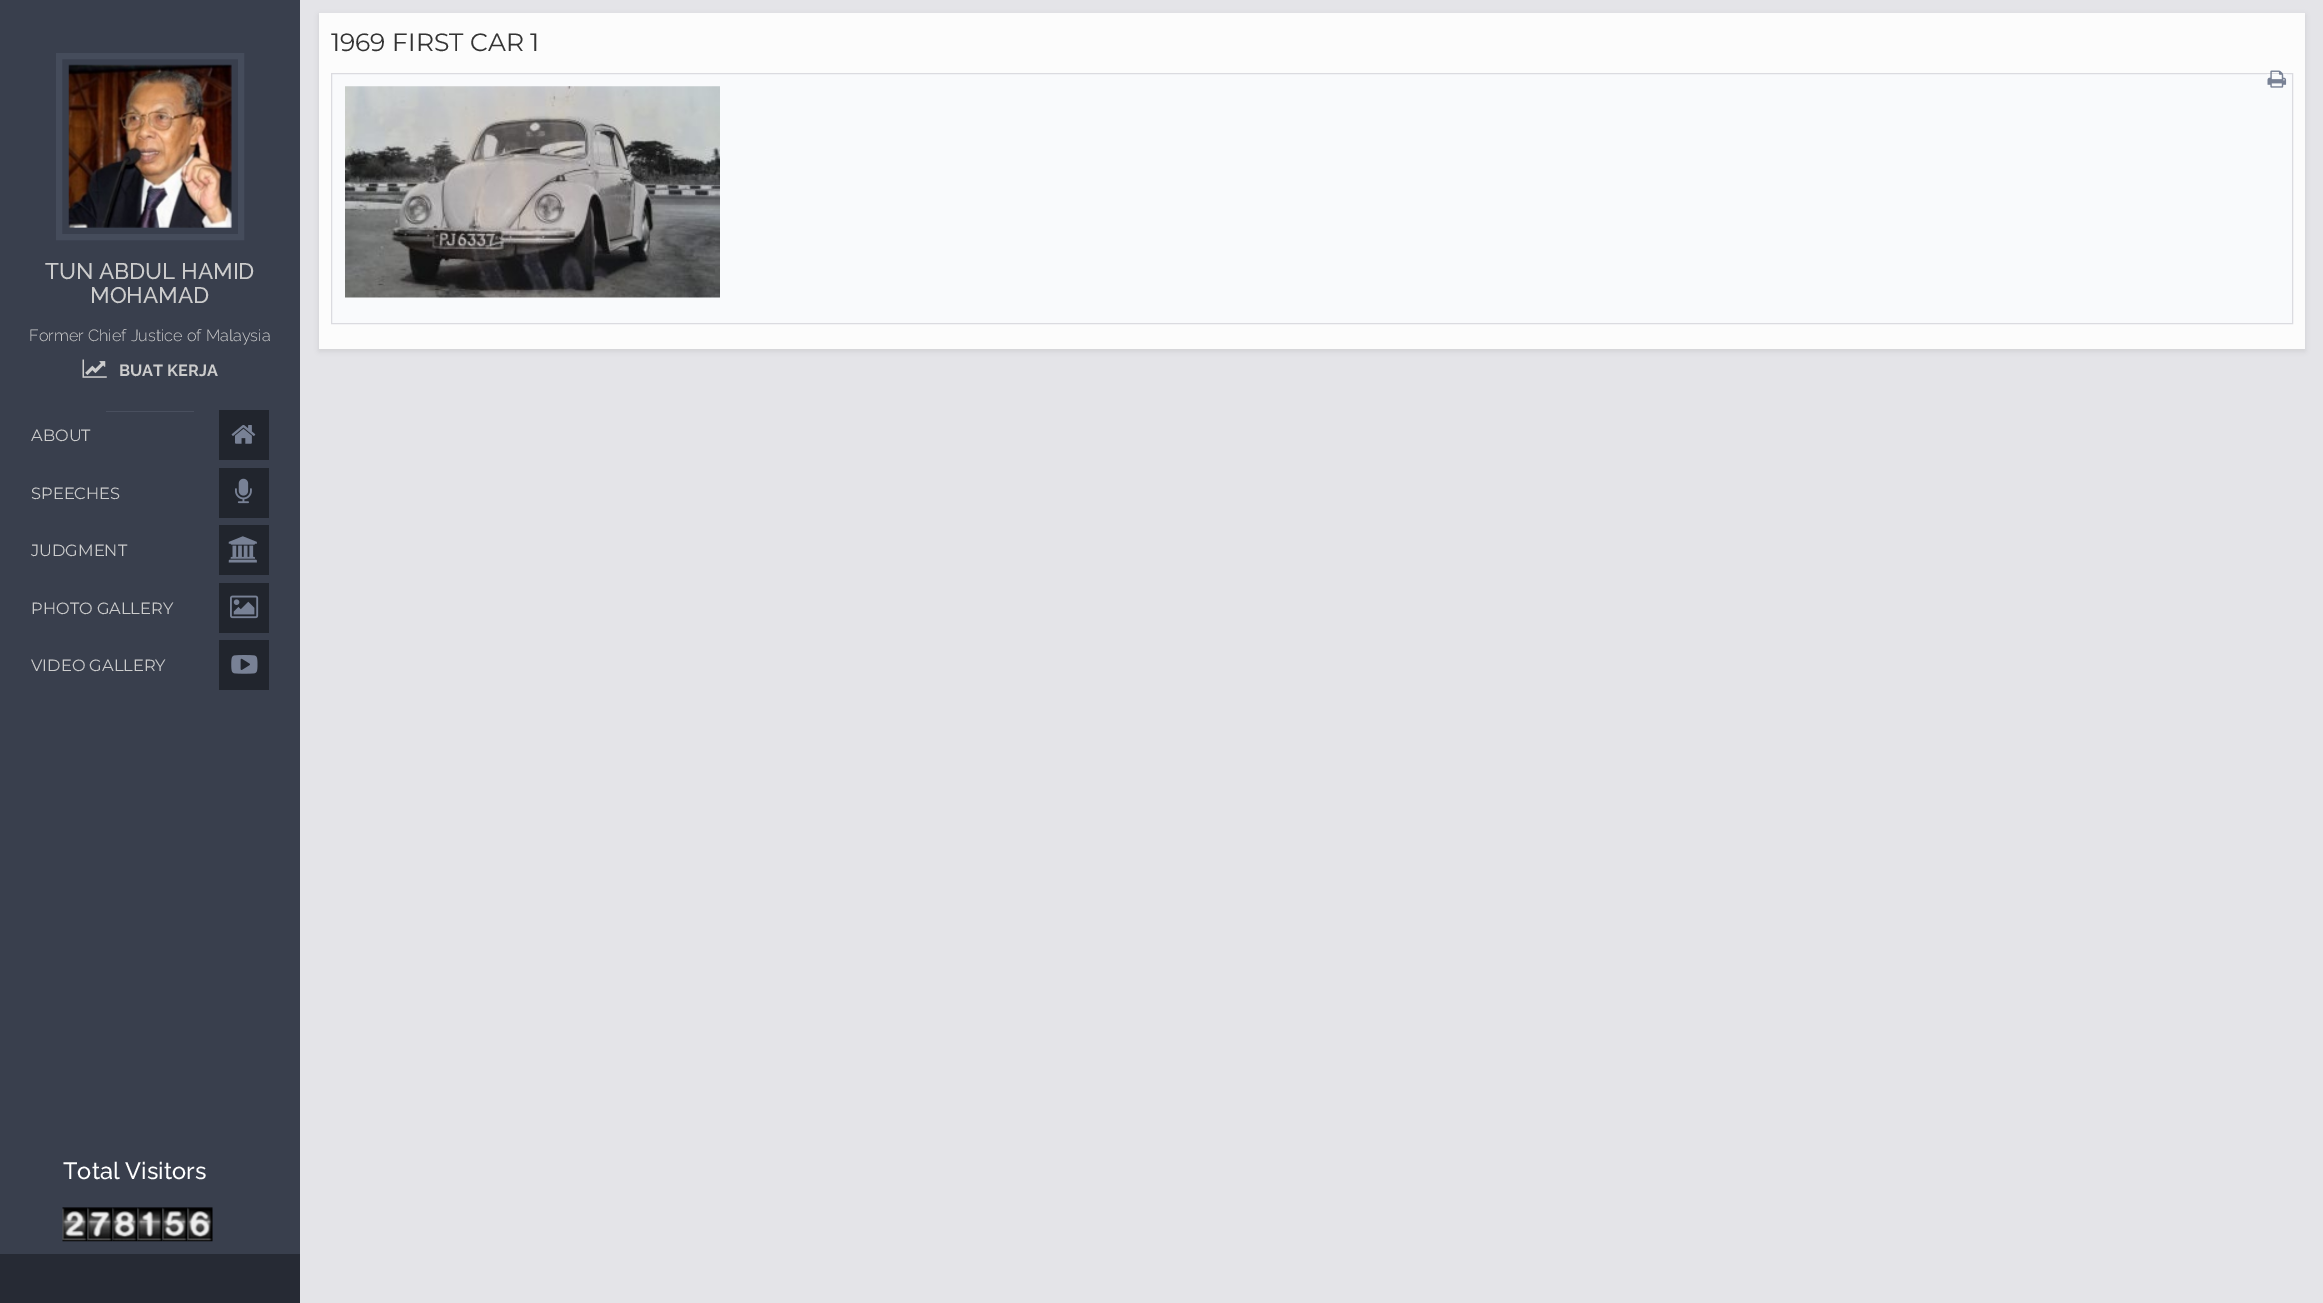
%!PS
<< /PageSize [2323 1303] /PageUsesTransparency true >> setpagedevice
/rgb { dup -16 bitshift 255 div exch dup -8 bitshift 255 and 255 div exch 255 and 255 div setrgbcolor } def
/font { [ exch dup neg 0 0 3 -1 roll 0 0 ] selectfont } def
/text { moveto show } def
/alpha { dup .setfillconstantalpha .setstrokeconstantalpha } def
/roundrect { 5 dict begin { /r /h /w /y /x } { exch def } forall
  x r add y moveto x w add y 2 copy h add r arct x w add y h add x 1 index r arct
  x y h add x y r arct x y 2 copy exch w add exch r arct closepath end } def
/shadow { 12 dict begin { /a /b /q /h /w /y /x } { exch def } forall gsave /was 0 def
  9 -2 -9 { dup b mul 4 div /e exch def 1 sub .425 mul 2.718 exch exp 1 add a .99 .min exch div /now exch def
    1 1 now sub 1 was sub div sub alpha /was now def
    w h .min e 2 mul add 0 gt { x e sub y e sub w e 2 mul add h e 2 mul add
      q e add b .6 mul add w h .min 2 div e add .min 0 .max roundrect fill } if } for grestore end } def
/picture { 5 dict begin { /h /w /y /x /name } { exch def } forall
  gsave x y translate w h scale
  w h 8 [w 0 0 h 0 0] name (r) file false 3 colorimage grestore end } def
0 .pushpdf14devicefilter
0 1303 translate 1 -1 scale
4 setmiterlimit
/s1 { /Montserrat-Regular 25 font 16#333333 rgb } def
/s2 { /Raleway-Medium 22.5 font 16#CCCCCC rgb } def
/s3 { /Raleway-Light 16.25 font 16#CCCCCC rgb } def
/s4 { /Raleway-Bold 16.25 font 16#CCCCCC rgb } def
/s5 { /Montserrat-Regular 16.25 font 16#CCCCCC rgb } def
/s6 { /Raleway-Medium 23.5 font 16#FFFFFF rgb } def
16#E4E4E8 rgb
0 0 2323 1303 rectfill
16#000000 rgb
319 15 1986 336 0 2.5 0.08 shadow
16#FCFCFC rgb
319 13 1986 336 rectfill
s1
(1969 FIRST CAR 1) 331 51 text
16#F9FAFC rgb
331.5 73.5 moveto 2292.5 73.5 lineto 2292.5 323.5 lineto 331.5 323.5 lineto closepath gsave fill grestore
16#DBDBE0 rgb
stroke
(pic1.raw) 2267 70 20 18 picture
(pic2.raw) 345 86 375 212 picture
16#393F4D rgb
0 0 300 1254 rectfill
16#454C5B rgb
6 setlinewidth
59 56 182 181 rectstroke
(pic3.raw) 68 64 164 164 picture
s2
(TUN ABDUL HAMID) 45 279 text
(MOHAMAD) 90 303 text
s3
(Former Chief Justice of Malaysia) 29 341 text
(pic4.raw) 82 359 25 19 picture
s4
(BUAT KERJA) 119 376 text
16#494F5E rgb
106 411 88 1 rectfill
s5
(ABOUT) 31 441 text
16#21252D rgb
219 410 50 50 rectfill
(pic5.raw) 231 425 25 19 picture
s5
(SPEECHES) 31 499 text
16#21252D rgb
219 468 50 50 rectfill
(pic6.raw) 235 478 17 26 picture
s5
(JUDGMENT) 31 556 text
16#21252D rgb
219 525 50 50 rectfill
(pic7.raw) 228 536 29 27 picture
s5
(PHOTO GALLERY) 31 614 text
16#21252D rgb
219 583 50 50 rectfill
(pic8.raw) 230 595 29 24 picture
s5
(VIDEO GALLERY) 31 671 text
16#21252D rgb
219 640 50 50 rectfill
(pic9.raw) 231 655 27 19 picture
16#262A34 rgb
0 1254 300 49 rectfill
s6
(Total Visitors) 63 1179 text
(pic10.raw) 62 1207 26 35 picture
(pic11.raw) 87 1207 26 35 picture
(pic12.raw) 112 1207 26 35 picture
(pic13.raw) 137 1207 26 35 picture
(pic14.raw) 162 1207 26 35 picture
(pic15.raw) 187 1207 26 35 picture
.poppdf14devicefilter showpage
